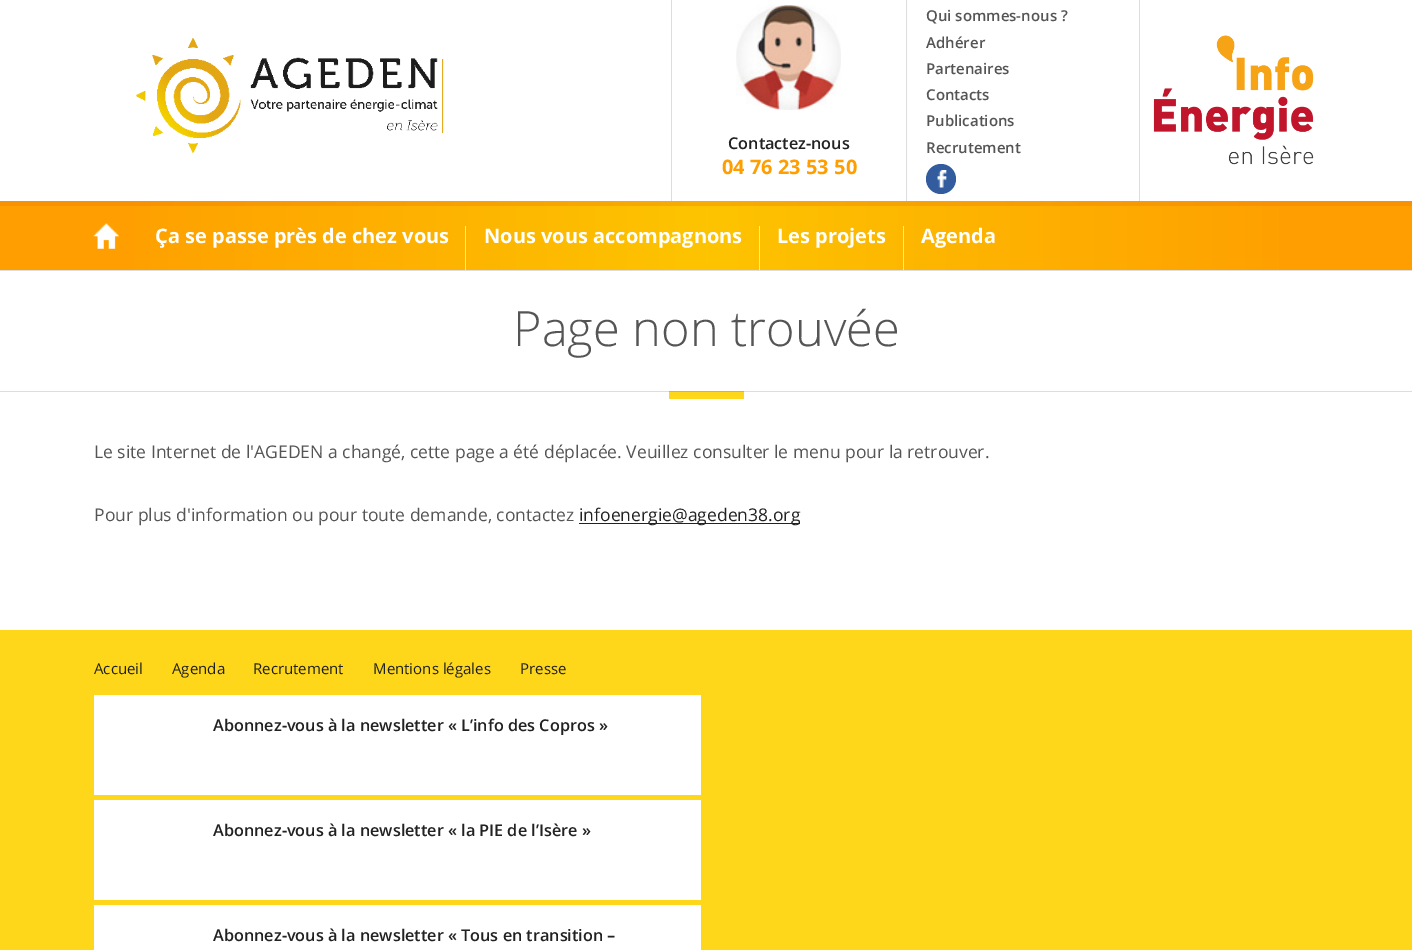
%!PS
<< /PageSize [1412 950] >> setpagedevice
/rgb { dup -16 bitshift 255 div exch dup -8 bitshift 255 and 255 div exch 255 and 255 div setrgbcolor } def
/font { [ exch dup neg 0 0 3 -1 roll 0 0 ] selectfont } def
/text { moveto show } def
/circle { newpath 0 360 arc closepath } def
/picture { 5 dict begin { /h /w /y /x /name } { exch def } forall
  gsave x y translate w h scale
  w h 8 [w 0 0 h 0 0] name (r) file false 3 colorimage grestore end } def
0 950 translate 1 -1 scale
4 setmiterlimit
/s1 { /OpenSans-SemiBold 16.25 font 16#222222 rgb } def
/s2 { /OpenSans-Bold 20 font 16#FF9E00 rgb } def
/s3 { /OpenSans-SemiBold 15 font 16#555555 rgb } def
/s4 { /OpenSans-Bold 20 font 16#FFFFFF rgb } def
/s5 { /OpenSans-Light 48.75 font 16#555555 rgb } def
/s6 { /OpenSans-Regular 17.5 font 16#555555 rgb } def
/s7 { /OpenSans-Regular 17.5 font 16#222222 rgb } def
/s8 { /OpenSans-Regular 15 font 16#222222 rgb } def
16#FFFFFF rgb
0 0 1412 950 rectfill
16#DDDDDD rgb
671 0 1 201 rectfill
(pic1.raw) 135 38 309 115 picture
(pic2.raw) 736 5 105 105 picture
906 0 1 201 rectfill
s1
(Contactez-nous) 728 149 text
s2
(04 76 23 53 50) 722 174 text
16#DDDDDD rgb
1139 0 1 201 rectfill
s3
(Qui sommes-nous ?) 926 21 text
(Adhérer) 926 48 text
(Partenaires) 926 74 text
(Contacts) 926 100 text
(Publications) 926 126 text
(Recrutement) 926 153 text
16#325C9E rgb
941 179 15 circle fill
(pic3.raw) 937 170 10 18 picture
(pic4.raw) 1153 35 161 130 picture
16#FF9E00 rgb
0 206 1412 64 rectfill
16#F79105 rgb
0 201 1412 5 rectfill
gsave 134 206 moveto 1279 206 lineto 1279 270 lineto 134 270 lineto closepath clip newpath
<< /ShadingType 2 /ColorSpace /DeviceRGB /Coords [94 236 1319 236] /Extend [true true] /Function << /FunctionType 3 /Domain [0 1] /Functions [<< /FunctionType 2 /Domain [0 1] /C0 [1 0.62 0] /C1 [0.992 0.769 0] /N 1 >> << /FunctionType 2 /Domain [0 1] /C0 [0.992 0.769 0] /C1 [1 0.62 0] /N 1 >>] /Bounds [0.5] /Encode [0 1 0 1] >> >> shfill grestore
gsave 151 201 moveto 1262 201 lineto 1262 206 lineto 151 206 lineto closepath clip newpath
<< /ShadingType 2 /ColorSpace /DeviceRGB /Coords [94 236 1319 236] /Extend [true true] /Function << /FunctionType 3 /Domain [0 1] /Functions [<< /FunctionType 2 /Domain [0 1] /C0 [0.969 0.569 0.02] /C1 [0.965 0.675 0.02] /N 1 >> << /FunctionType 2 /Domain [0 1] /C0 [0.965 0.675 0.02] /C1 [0.969 0.569 0.02] /N 1 >>] /Bounds [0.5] /Encode [0 1 0 1] >> >> shfill grestore
(pic5.raw) 93 223 26 26 picture
s4
(Ça se passe près de chez vous) 155 243 text
16#FEE6A7 rgb
465 226 1 44 rectfill
s4
(Nous vous accompagnons) 484 243 text
16#FEE8A7 rgb
759 226 1 44 rectfill
s4
(Les projets) 777 243 text
16#FEE6A7 rgb
903 226 1 44 rectfill
s4
(Agenda) 921 243 text
16#DDDDDD rgb
0 270 1412 1 rectfill
0 391 1412 1 rectfill
s5
(Page non trouvée) 513 346 text
16#FED71A rgb
669 392 75 7 rectfill
16#DAB916 rgb
669 391 75 1 rectfill
s6
(Le site Internet de l'AGEDEN a changé, cette page a été déplacée. Veuillez consulter le menu pour la retrouver.) 94 458 text
(Pour plus d'information ou pour toute demande, contactez) 94 521 text
16#222222 rgb
579 523 221 1 rectfill
(infoenergie@ageden38.org) 579 521 text
16#FED71A rgb
0 630 1412 320 rectfill
s8
(Accueil) 94 674 text
(Agenda) 172 674 text
(Recrutement) 253 674 text
(Mentions légales) 373 674 text
(Presse) 520 674 text
16#FFFFFF rgb
94 695 607 100 rectfill
s1
(Abonnez-vous à la newsletter « L’info des Copros ») 213 731 text
16#FFFFFF rgb
94 800 607 100 rectfill
s1
(Abonnez-vous à la newsletter « la PIE de l’Isère ») 213 836 text
16#FFFFFF rgb
94 905 607 45 rectfill
s1
(Abonnez-vous à la newsletter « Tous en transition –) 213 941 text
showpage
